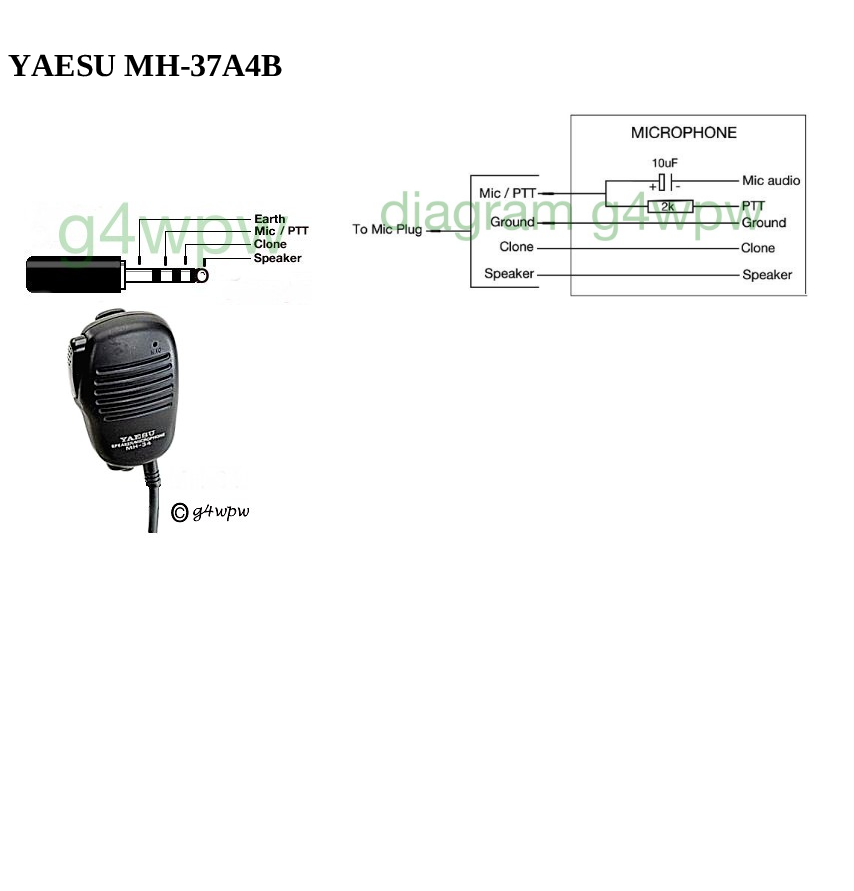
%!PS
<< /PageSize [854 891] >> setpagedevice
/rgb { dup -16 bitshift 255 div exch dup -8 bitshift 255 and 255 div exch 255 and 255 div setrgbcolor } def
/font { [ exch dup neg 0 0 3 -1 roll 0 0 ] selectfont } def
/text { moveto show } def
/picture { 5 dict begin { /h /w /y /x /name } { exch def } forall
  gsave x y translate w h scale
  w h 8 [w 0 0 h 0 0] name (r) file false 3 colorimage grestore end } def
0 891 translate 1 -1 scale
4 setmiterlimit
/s1 { /LiberationSerif-Bold 32 font 16#000000 rgb } def
16#FFFFFF rgb
0 0 854 891 rectfill
s1
(YAESU MH-37A4B) 8 76 text
(pic1.raw) 24 201 288 104 picture
(pic2.raw) 349 112 460 185 picture
(pic3.raw) 64 306 191 232 picture
showpage
